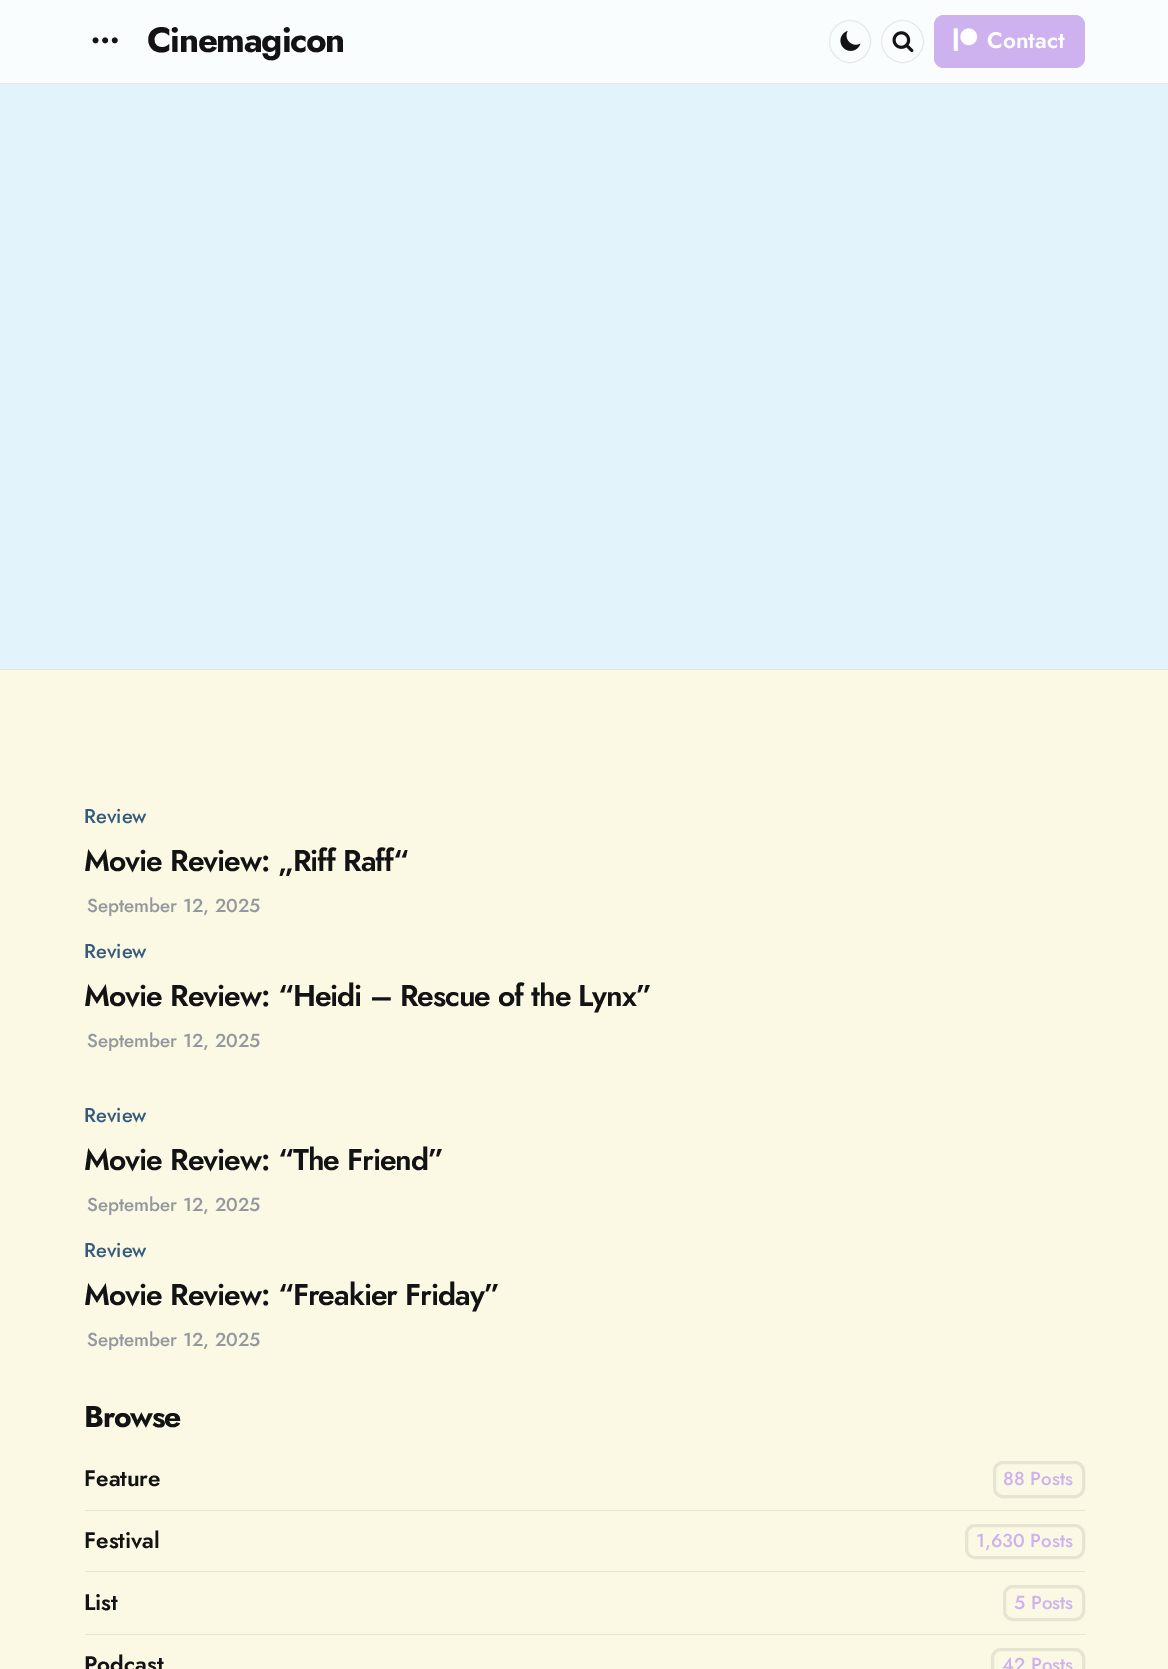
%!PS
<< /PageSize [1168 1669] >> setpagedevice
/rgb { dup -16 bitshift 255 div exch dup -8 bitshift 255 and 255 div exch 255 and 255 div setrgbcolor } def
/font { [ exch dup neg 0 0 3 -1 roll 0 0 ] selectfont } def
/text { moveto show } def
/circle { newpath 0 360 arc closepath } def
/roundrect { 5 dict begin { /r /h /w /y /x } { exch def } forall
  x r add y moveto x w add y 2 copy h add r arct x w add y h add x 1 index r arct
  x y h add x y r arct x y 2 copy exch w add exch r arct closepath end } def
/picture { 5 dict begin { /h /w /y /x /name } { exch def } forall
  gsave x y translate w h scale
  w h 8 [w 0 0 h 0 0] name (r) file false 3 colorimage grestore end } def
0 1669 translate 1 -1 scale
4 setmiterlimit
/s1 { /Jost-SemiBold 22.5 font 16#FFFFFF rgb } def
/s2 { /Jost-Medium 20 font 16#355C7D rgb } def
/s3 { /Jost-Medium 18.75 font 16#94979E rgb } def
/s4 { /Jost-SemiBold 22.5 font 16#131315 rgb } def
/s5 { /Jost-Medium 18.75 font 16#CEB2EF rgb } def
16#E3F3FB rgb
0 0 1168 1669 rectfill
16#F9FDFE rgb
0 0 1168 83 rectfill
16#E5E9EA rgb
0 83 1168 1 rectfill
(pic1.raw) 92 37 26 7 picture
/Jost-Bold 35 font
16#131315 rgb
147 52 moveto -1.25 0 (Cinemagicon) ashow
(pic2.raw) 840 30 21 21 picture
16#E5E9EA rgb
829.5 20.5 41 42 20.5 roundrect stroke
(pic3.raw) 892 31 22 22 picture
902.5 41.5 21 circle stroke
16#CEB2EF rgb
934 15 151 53 10 roundrect fill
(pic4.raw) 953 28 25 23 picture
s1
(Contact) 987 48 text
16#FBF9E3 rgb
0 670 1168 999 rectfill
16#E7E5D1 rgb
0 669 1168 1 rectfill
s2
(Review) 84 823 text
/Jost-SemiBold 30 font
16#131315 rgb
84 871 moveto -1 0 (Movie Review: „Riff Raff“) ashow
s3
(September 12, 2025) 87 912 text
s2
(Review) 84 958 text
/Jost-SemiBold 30 font
16#131315 rgb
84 1006 moveto -1 0 (Movie Review: “Heidi – Rescue of the Lynx”) ashow
s3
(September 12, 2025) 87 1047 text
s2
(Review) 84 1122 text
/Jost-SemiBold 30 font
16#131315 rgb
84 1170 moveto -1 0 (Movie Review: “The Friend”) ashow
s3
(September 12, 2025) 87 1211 text
s2
(Review) 84 1257 text
/Jost-SemiBold 30 font
16#131315 rgb
84 1305 moveto -1 0 (Movie Review: “Freakier Friday”) ashow
s3
(September 12, 2025) 87 1346 text
/Jost-Bold 30 font
16#131315 rgb
84 1427 moveto -1.25 0 (Browse) ashow
16#E7E5D1 rgb
85 1510 1000 1 rectfill
s4
(Feature) 84 1486 text
16#E7E5D1 rgb
3 setlinewidth
994.5 1462.5 89 34 8.5 roundrect stroke
s5
(88 Posts) 1003 1485 text
16#E7E5D1 rgb
85 1571 1000 1 rectfill
s4
(Festival) 84 1548 text
16#E7E5D1 rgb
966.5 1525.5 117 32 8.5 roundrect stroke
s5
(1,630 Posts) 976 1547 text
16#E7E5D1 rgb
85 1634 1000 1 rectfill
s4
(List) 84 1610 text
16#E7E5D1 rgb
1004.5 1586.5 79 33 8.5 roundrect stroke
s5
(5 Posts) 1014 1609 text
s4
(Podcast) 84 1672 text
16#E7E5D1 rgb
992.5 1649.5 91 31 8.5 roundrect stroke
s5
(42 Posts) 1002 1671 text
showpage
